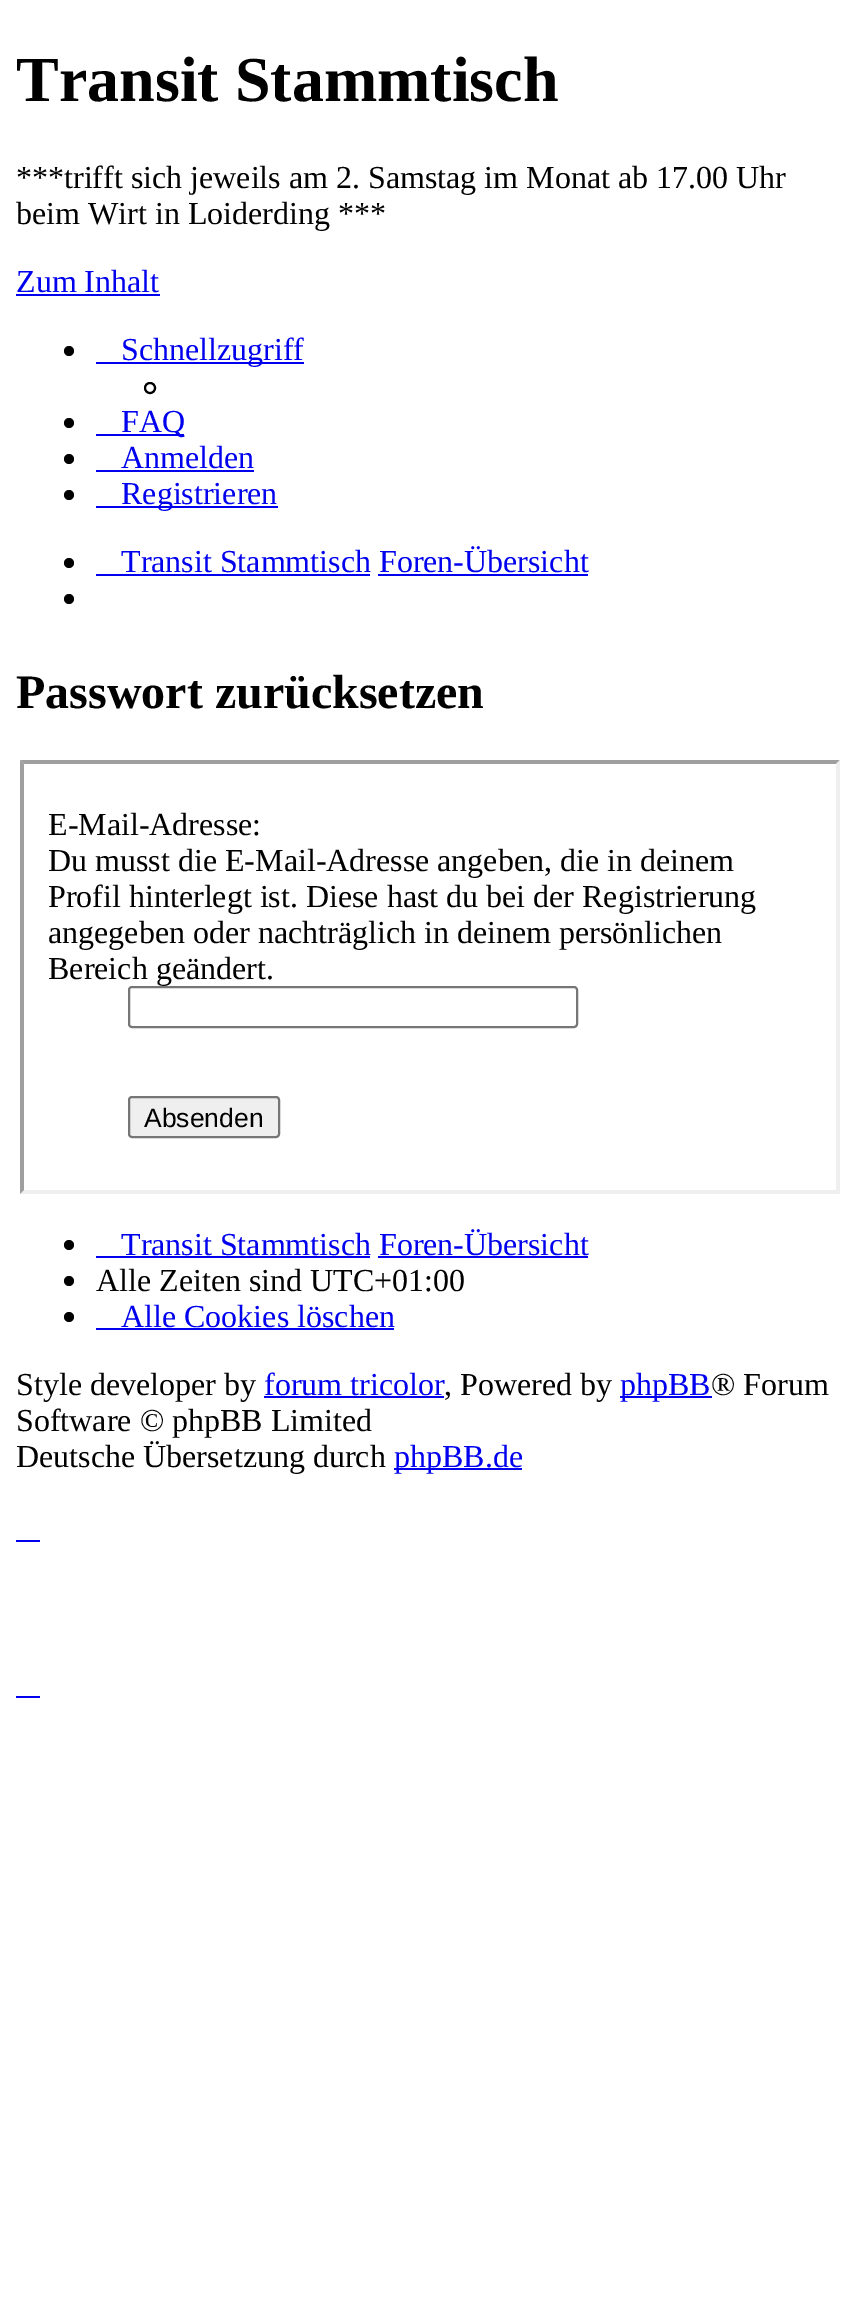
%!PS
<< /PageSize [860 2320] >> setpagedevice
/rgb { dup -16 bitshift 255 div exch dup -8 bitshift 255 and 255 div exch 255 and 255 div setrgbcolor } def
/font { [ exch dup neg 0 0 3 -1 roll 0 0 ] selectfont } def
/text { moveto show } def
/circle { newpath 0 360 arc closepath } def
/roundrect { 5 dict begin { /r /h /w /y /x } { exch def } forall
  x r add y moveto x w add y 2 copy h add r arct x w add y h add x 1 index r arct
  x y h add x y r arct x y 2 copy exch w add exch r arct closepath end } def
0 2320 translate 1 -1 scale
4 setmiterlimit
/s1 { /LiberationSerif-Bold 64 font 16#000000 rgb } def
/s2 { /LiberationSerif-Regular 32 font 16#000000 rgb } def
/s3 { /LiberationSerif-Regular 32 font 16#0000EE rgb } def
/s4 { /LiberationSerif-Bold 48 font 16#000000 rgb } def
/s5 { /LiberationSans-Regular 26.5 font 16#000000 rgb } def
16#FFFFFF rgb
0 0 860 2320 rectfill
s1
(Transit Stammtisch) 16 101 text
s2
(***trifft sich jeweils am 2. Samstag im Monat ab 17.00 Uhr) 16 188 text
(beim Wirt in Loiderding ***) 16 224 text
s3
(Zum Inhalt) 16 292 text
16 294 144 2 rectfill
16#000000 rgb
69 351 5 circle fill
16#0000EE rgb
96 362 208 2 rectfill
(Schnellzugriff) 121 360 text
16#000000 rgb
2 setlinewidth
150 388 5 circle stroke
69 423 5 circle fill
16#0000EE rgb
96 434 88 2 rectfill
(FAQ) 121 432 text
16#000000 rgb
69 459 5 circle fill
s3
(Anmelden) 121 468 text
96 470 158 2 rectfill
16#000000 rgb
69 495 5 circle fill
16#0000EE rgb
96 506 182 2 rectfill
(Registrieren) 121 504 text
16#000000 rgb
69 563 5 circle fill
s3
(Transit Stammtisch Foren-Übersicht) 121 572 text
96 574 274 2 rectfill
378 574 210 2 rectfill
16#000000 rgb
69 599 5 circle fill
s4
(Passwort zurücksetzen) 16 708 text
16#9F9F9F rgb
20 760 moveto 840 760 lineto 836 764 lineto 24 764 lineto closepath fill
16#EFEFEF rgb
840 760 moveto 840 1194 lineto 836 1190 lineto 836 764 lineto closepath fill
840 1194 moveto 20 1194 lineto 24 1190 lineto 836 1190 lineto closepath fill
16#9F9F9F rgb
20 1194 moveto 20 760 lineto 24 764 lineto 24 1190 lineto closepath fill
s2
(E-Mail-Adresse:) 48 835 text
(Du musst die E-Mail-Adresse angeben, die in deinem) 48 871 text
(Profil hinterlegt ist. Diese hast du bei der Registrierung) 48 907 text
(angegeben oder nachträglich in deinem persönlichen) 48 943 text
(Bereich geändert.) 48 979 text
16#767676 rgb
129 987 448 40 3 roundrect stroke
16#EFEFEF rgb
129 1097 150 40 3 roundrect gsave fill grestore
16#767676 rgb
stroke
s5
(Absenden) 144 1127 text
69 1245 5 circle fill
s3
(Transit Stammtisch Foren-Übersicht) 121 1255 text
96 1256 274 2 rectfill
378 1256 210 2 rectfill
16#000000 rgb
69 1281 5 circle fill
(Alle Zeiten sind UTC+01:00) 96 1291 text
69 1317 5 circle fill
s3
(Alle Cookies löschen) 121 1327 text
96 1328 298 2 rectfill
s2
(Style developer by) 16 1395 text
s3
(forum tricolor) 264 1395 text
264 1396 180 2 rectfill
s2
(, Powered by) 444 1395 text
16#0000EE rgb
620 1396 92 2 rectfill
(phpBB) 620 1395 text
s2
(® Forum) 711 1395 text
(Software © phpBB Limited) 16 1431 text
(Deutsche Übersetzung durch) 16 1467 text
16#0000EE rgb
394 1468 128 2 rectfill
(phpBB.de) 394 1467 text
16 1540 24 2 rectfill
16 1696 24 2 rectfill
showpage
